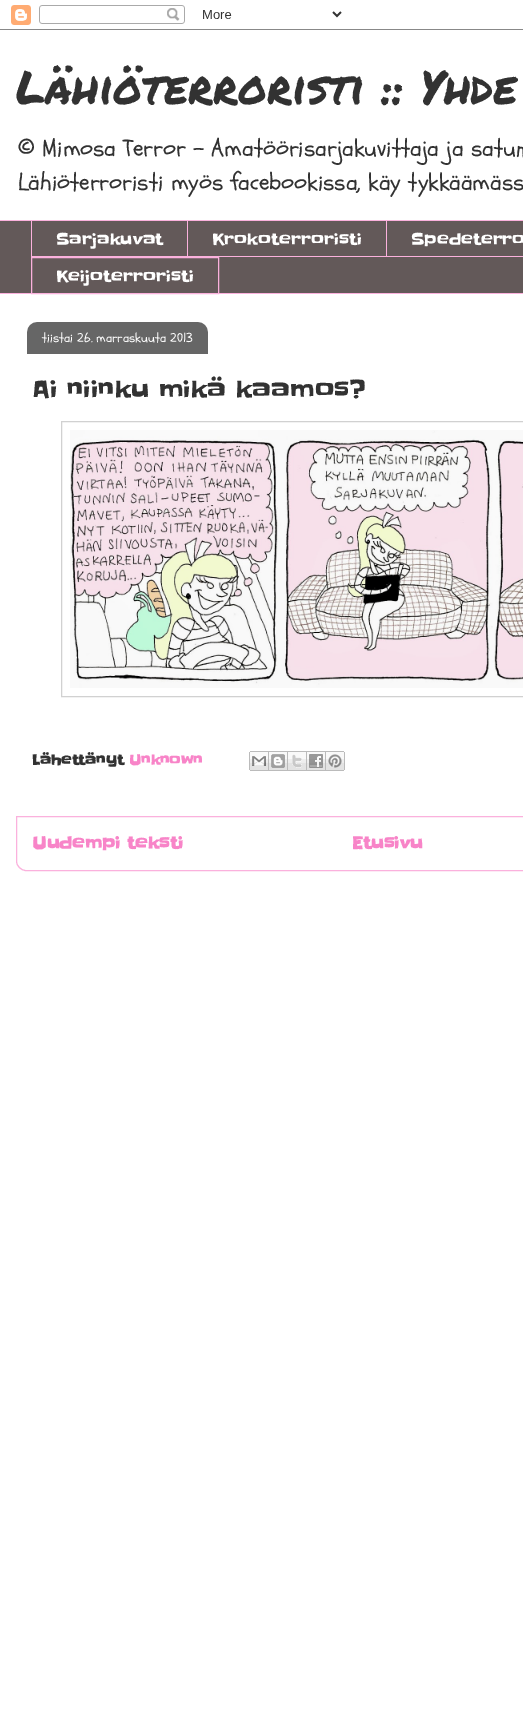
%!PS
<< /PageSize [523 1717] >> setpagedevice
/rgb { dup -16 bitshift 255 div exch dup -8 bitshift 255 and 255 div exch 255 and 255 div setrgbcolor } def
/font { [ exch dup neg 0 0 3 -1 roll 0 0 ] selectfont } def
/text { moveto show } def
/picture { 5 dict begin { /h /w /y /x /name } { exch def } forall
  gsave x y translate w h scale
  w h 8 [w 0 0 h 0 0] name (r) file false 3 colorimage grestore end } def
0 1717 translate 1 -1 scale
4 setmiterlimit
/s1 { /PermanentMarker-Regular 46 font 16#323232 rgb } def
/s2 { /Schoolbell-Regular 24 font 16#323232 rgb } def
/s3 { /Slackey-Regular 16 font 16#FFFFFF rgb } def
/s4 { /Schoolbell-Regular 13 font 16#FFFFFF rgb } def
/s5 { /Slackey-Regular 24 font 16#323232 rgb } def
/s6 { /Slackey-Bold 14 font 16#323232 rgb } def
/s7 { /Slackey-Bold 14 font 16#F884C8 rgb } def
/s8 { /Slackey-Bold 16.75 font 16#F884C8 rgb } def
16#FFFFFF rgb
0 0 523 1717 rectfill
(pic1.raw) 0 5 523 25 picture
s1
(Lähiöterroristi :: Yhde) 16 104 text
s2
(© Mimosa Terror - Amatöörisarjakuvittaja ja satun) 18 156 text
(Lähiöterroristi myös facebookissa, käy tykkäämäss) 18 190 text
16#635959 rgb
0 221 523 72 rectfill
16#FBB1DD rgb
0 220 523 1 rectfill
31 256 492 1 rectfill
31 220 1 37 rectfill
s3
(Sarjakuvat) 56 245 text
16#FBB1DD rgb
187 220 1 37 rectfill
s3
(Krokoterroristi) 212 245 text
16#FBB1DD rgb
386 220 1 37 rectfill
s3
(Spedeterro) 411 245 text
16#FBB1DD rgb
31.5 257.5 187 36 rectstroke
s3
(Keijoterroristi) 56 282 text
16#FBB1DD rgb
0 293 523 1 rectfill
(pic2.raw) 27 322 181 32 picture
s4
(tiistai 26. marraskuuta 2013) 42 342 text
s5
(Ai niinku mikä kaamos?) 32 398 text
16#D1D1D1 rgb
61.5 421.5 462 275 rectstroke
(pic3.raw) 70 430 453 258 picture
s6
(Lähettänyt) 32 765 text
s7
(Unknown) 129 765 text
(pic4.raw) 249 751 20 20 picture
(pic5.raw) 269 751 19 20 picture
(pic6.raw) 288 751 19 20 picture
(pic7.raw) 307 751 19 20 picture
(pic8.raw) 326 751 19 20 picture
16#FBB1DD rgb
16.5 816.5 moveto 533.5 816.5 lineto 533.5 861 lineto 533.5 866 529 870.5 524 870.5 curveto 26 870.5 lineto 21 870.5 16.5 866 16.5 861 curveto closepath stroke
s8
(Uudempi teksti) 32 849 text
(Etusivu) 352 849 text
showpage
